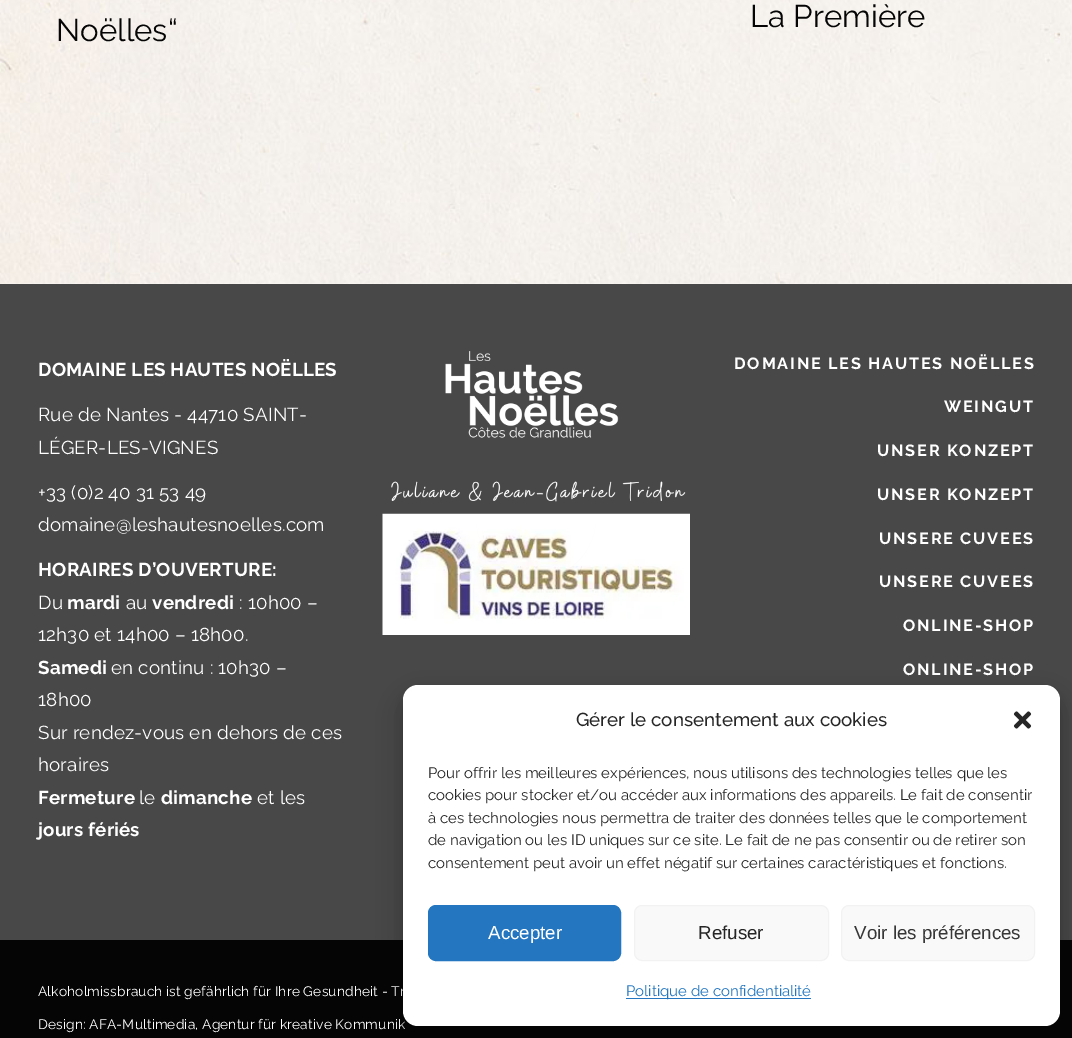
%!PS
<< /PageSize [1072 1038] /PageUsesTransparency true >> setpagedevice
/rgb { dup -16 bitshift 255 div exch dup -8 bitshift 255 and 255 div exch 255 and 255 div setrgbcolor } def
/font { [ exch dup neg 0 0 3 -1 roll 0 0 ] selectfont } def
/text { moveto show } def
/alpha { dup .setfillconstantalpha .setstrokeconstantalpha } def
/roundrect { 5 dict begin { /r /h /w /y /x } { exch def } forall
  x r add y moveto x w add y 2 copy h add r arct x w add y h add x 1 index r arct
  x y h add x y r arct x y 2 copy exch w add exch r arct closepath end } def
/shadow { 12 dict begin { /a /b /q /h /w /y /x } { exch def } forall gsave /was 0 def
  9 -2 -9 { dup b mul 4 div /e exch def 1 sub .425 mul 2.718 exch exp 1 add a .99 .min exch div /now exch def
    1 1 now sub 1 was sub div sub alpha /was now def
    w h .min e 2 mul add 0 gt { x e sub y e sub w e 2 mul add h e 2 mul add
      q e add b .6 mul add w h .min 2 div e add .min 0 .max roundrect fill } if } for grestore end } def
/picture { 5 dict begin { /h /w /y /x /name } { exch def } forall
  gsave x y translate w h scale
  w h 8 [w 0 0 h 0 0] name (r) file false 3 colorimage grestore end } def
0 .pushpdf14devicefilter
0 1038 translate 1 -1 scale
4 setmiterlimit
/s1 { /Raleway-Regular 31.25 font 16#050505 rgb } def
/s2 { /Raleway-Medium 18.75 font 16#262626 rgb } def
/s3 { /Raleway-Regular 15 font 16#262626 rgb } def
/s4 { /LiberationSans-Regular 18.75 font 16#FFFFFF rgb } def
/s5 { /LiberationSans-Regular 18.75 font 16#262626 rgb } def
/s6 { /LiberationSans-Regular 18.75 font 16#373737 rgb } def
/s7 { /Raleway-Regular 15 font 16#2376BF rgb } def
16#FFFFFF rgb
0 0 1072 1038 rectfill
(pic1.raw) 0 0 1072 284 picture
s1
(Noëlles“) 56 41 text
(La Première) 750 27 text
16#484848 rgb
0 284 1072 656 rectfill
/Raleway-Bold 18.75 font
16#FFFFFF rgb
38 376 moveto 0.2 0 (DOMAINE LES HAUTES NOËLLES) ashow
/Raleway-Regular 18.75 font
38 421 moveto 0.2 0 (Rue de Nantes - 44710 SAINT-) ashow
38 454 moveto 0.2 0 (LÉGER-LES-VIGNES) ashow
38 499 moveto 0.2 0 (+33 \(0\)2 40 31 53 49) ashow
38 531 moveto 0.2 0 (domaine@leshautesnoelles.com) ashow
/Raleway-Bold 18.75 font
38 576 moveto 0.2 0 (HORAIRES D’OUVERTURE:) ashow
/Raleway-Regular 18.75 font
38 609 moveto 0.2 0 (Du) ashow
/Raleway-Bold 18.75 font
67 609 moveto 0.2 0 (mardi) ashow
/Raleway-Regular 18.75 font
126 609 moveto 0.2 0 (au) ashow
/Raleway-Bold 18.75 font
152 609 moveto 0.2 0 (vendredi) ashow
/Raleway-Regular 18.75 font
239 609 moveto 0.2 0 (: 10h00 –) ashow
38 641 moveto 0.2 0 (12h30 et 14h00 – 18h00.) ashow
/Raleway-Bold 18.75 font
38 674 moveto 0.2 0 (Samedi) ashow
/Raleway-Regular 18.75 font
111 674 moveto 0.2 0 (en continu : 10h30 –) ashow
38 706 moveto 0.2 0 (18h00) ashow
38 739 moveto 0.2 0 (Sur rendez-vous en dehors de ces) ashow
38 771 moveto 0.2 0 (horaires) ashow
/Raleway-Bold 18.75 font
38 804 moveto 0.2 0 (Fermeture) ashow
/Raleway-Regular 18.75 font
139 804 moveto 0.2 0 (le) ashow
/Raleway-Bold 18.75 font
161 804 moveto 0.2 0 (dimanche) ashow
/Raleway-Regular 18.75 font
257 804 moveto 0.2 0 (et les) ashow
/Raleway-Bold 18.75 font
38 836 moveto 0.2 0 (jours fériés) ashow
(pic2.raw) 391 351 295 151 picture
(pic3.raw) 382 513 308 122 picture
/Raleway-Bold 16.25 font
734 369 moveto 1.8 0 (DOMAINE LES HAUTES NOËLLES) ashow
944 412 moveto 1.8 0 (WEINGUT) ashow
877 456 moveto 1.8 0 (UNSER KONZEPT) ashow
877 500 moveto 1.8 0 (UNSER KONZEPT) ashow
879 544 moveto 1.8 0 (UNSERE CUVEES) ashow
879 587 moveto 1.8 0 (UNSERE CUVEES) ashow
903 631 moveto 1.8 0 (ONLINE-SHOP) ashow
903 675 moveto 1.8 0 (ONLINE-SHOP) ashow
16#050505 rgb
0 940 1072 98 rectfill
/Raleway-Regular 13.75 font
16#FFFFFF rgb
38 996 moveto 0.15 0 (Alkoholmissbrauch ist gefährlich für Ihre Gesundheit - Tr) ashow
38 1029 moveto 0.15 0 (Design: AFA-Multimedia, Agentur für kreative Kommunik) ashow
16#050505 rgb
403 693 657 341 15 4 0.23 shadow
403 698 657 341 15 12.5 0.19 shadow
16#FFFFFF rgb
403 685 657 341 15 roundrect fill
s2
(Gérer le consentement aux cookies) 576 726 text
(pic4.raw) 1013 711 19 18 picture
s3
(Pour offrir les meilleures expériences, nous utilisons des technologies telles que les) 428 778 text
(cookies pour stocker et/ou accéder aux informations des appareils. Le fait de consentir) 428 800 text
(à ces technologies nous permettra de traiter des données telles que le comportement) 428 823 text
(de navigation ou les ID uniques sur ce site. Le fait de ne pas consentir ou de retirer son) 428 845 text
(consentement peut avoir un effet négatif sur certaines caractéristiques et fonctions.) 428 868 text
16#2376BF rgb
428.5 905.5 192 55 7.5 roundrect gsave fill grestore
stroke
s4
(Accepter) 488 939 text
16#F9F9F9 rgb
634.5 905.5 194 55 7.5 roundrect gsave fill grestore
16#F2F2F2 rgb
stroke
s5
(Refuser) 698 939 text
16#F9F9F9 rgb
841.5 905.5 193 55 7.5 roundrect gsave fill grestore
16#F2F2F2 rgb
stroke
s6
(Voir les préférences) 854 939 text
16#2376BF rgb
626 998 185 1 rectfill
s7
(Politique de confidentialité) 626 996 text
0.03 alpha
16#E5C8C0 rgb
476 518 moveto 476 551 503 578 536 578 curveto 569 578 596 551 596 518 curveto 596 552 569 580 536 580 curveto 503 580 476 552 476 518 curveto fill
.poppdf14devicefilter showpage
